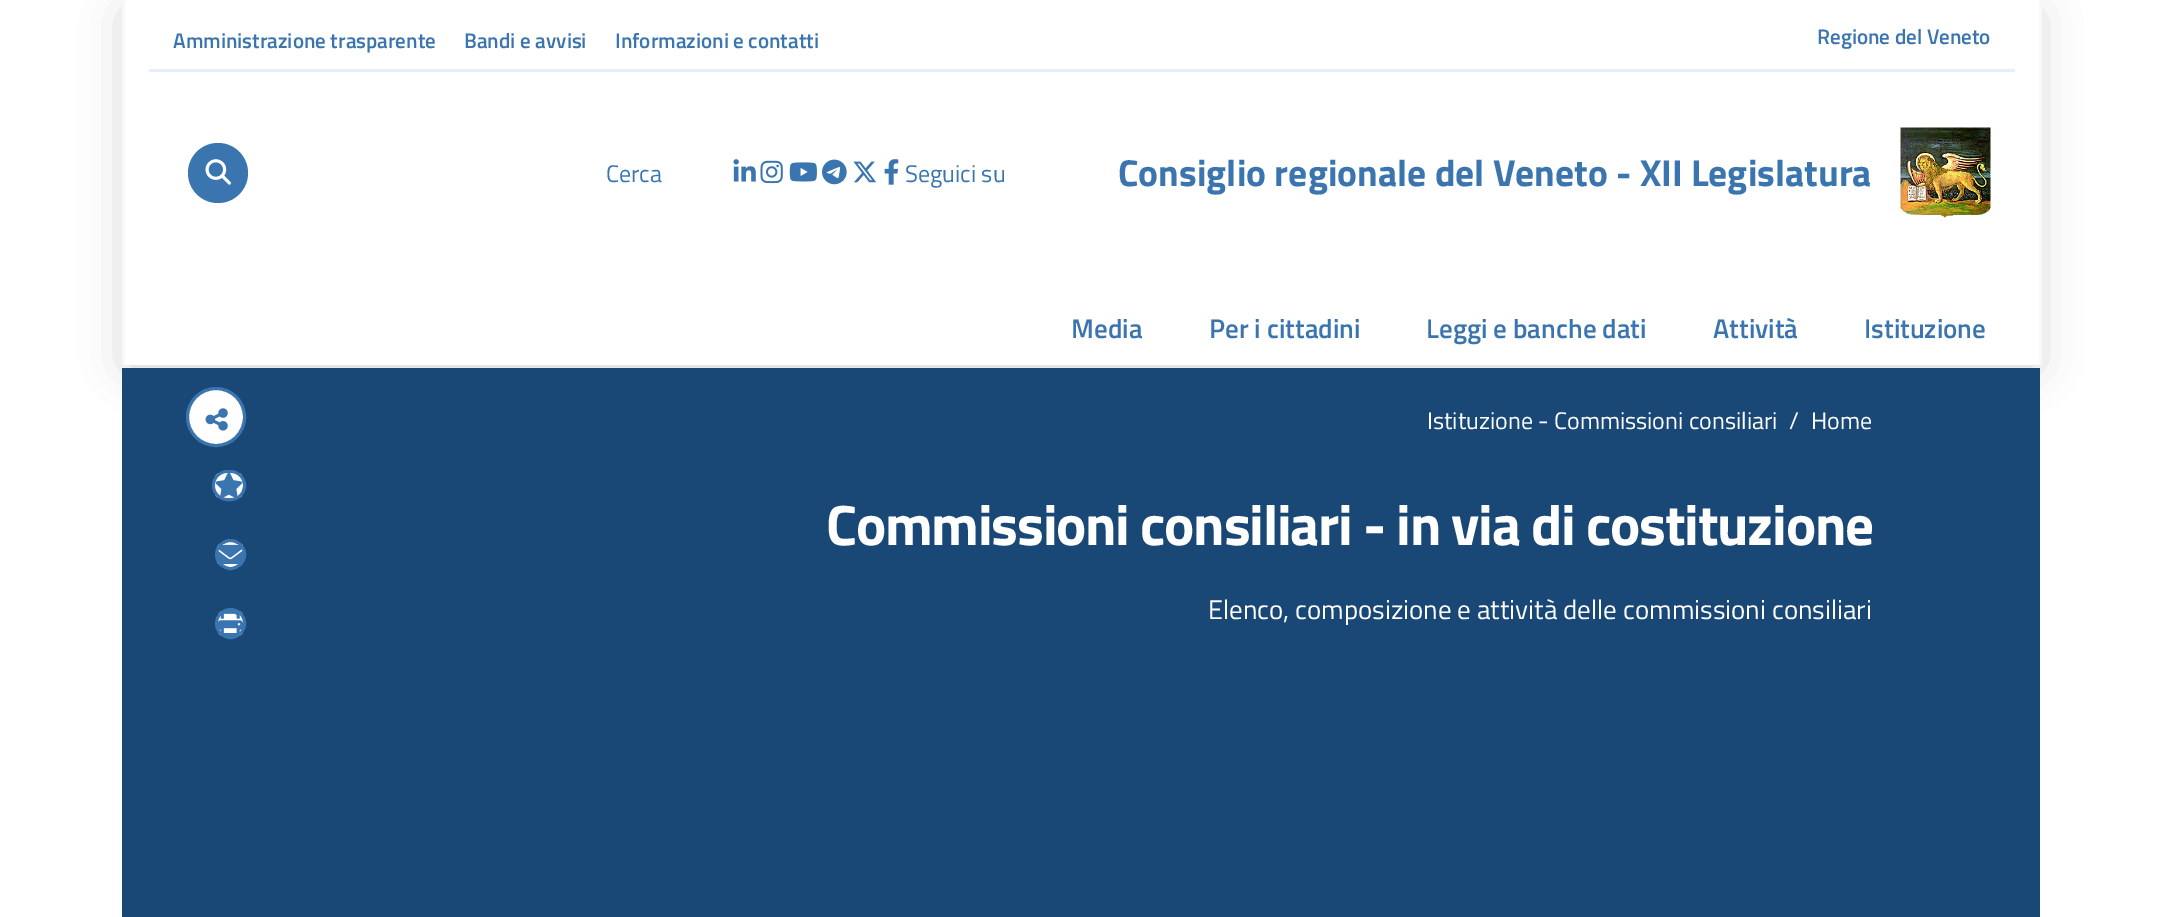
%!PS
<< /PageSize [2163 917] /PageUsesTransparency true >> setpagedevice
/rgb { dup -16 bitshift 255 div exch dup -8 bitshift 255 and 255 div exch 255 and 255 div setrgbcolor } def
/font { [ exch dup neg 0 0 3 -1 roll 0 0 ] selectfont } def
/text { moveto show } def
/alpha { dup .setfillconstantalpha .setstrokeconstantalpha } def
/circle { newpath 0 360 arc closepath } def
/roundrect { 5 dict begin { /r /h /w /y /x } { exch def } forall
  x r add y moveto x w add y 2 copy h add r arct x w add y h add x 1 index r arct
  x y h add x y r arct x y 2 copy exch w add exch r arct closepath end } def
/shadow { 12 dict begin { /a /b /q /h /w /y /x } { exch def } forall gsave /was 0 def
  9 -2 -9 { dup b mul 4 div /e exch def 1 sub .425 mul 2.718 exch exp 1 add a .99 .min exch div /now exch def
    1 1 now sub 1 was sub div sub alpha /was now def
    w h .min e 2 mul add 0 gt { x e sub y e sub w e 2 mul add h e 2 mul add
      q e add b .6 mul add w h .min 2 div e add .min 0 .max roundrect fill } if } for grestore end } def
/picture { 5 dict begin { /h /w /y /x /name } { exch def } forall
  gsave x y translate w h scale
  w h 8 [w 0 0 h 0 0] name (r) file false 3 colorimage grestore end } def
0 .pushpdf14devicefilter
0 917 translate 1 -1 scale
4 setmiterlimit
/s1 { /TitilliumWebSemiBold-SemiBold 21 font 16#3B75AF rgb } def
/s2 { /TitilliumWeb-Regular 24 font 16#3B75AF rgb } def
/s3 { /TitilliumWeb-Bold 37.5 font 16#3B75AF rgb } def
/s4 { /TitilliumWebSemiBold-SemiBold 27 font 16#3B75AF rgb } def
/s5 { /TitilliumWeb-Regular 24 font 16#FFFFFF rgb } def
/s6 { /TitilliumWeb-Regular 27 font 16#FFFFFF rgb } def
16#FFFFFF rgb
0 0 2163 917 rectfill
16#000000 rgb
129 15 1905 350 0 22.5 0.2 shadow
16#FFFFFF rgb
125 0 1914 365 rectfill
16#F7F8F8 rgb
2039 0 3 365 rectfill
122 0 3 365 rectfill
16#E5EFFA rgb
149 69 1866 3 rectfill
s1
(Amministrazione trasparente) 173 48 text
(Bandi e avvisi) 464 48 text
(Informazioni e contatti) 615 48 text
(Regione del Veneto) 1817 44 text
218 173 30 circle fill
(pic1.raw) 205 159 26 26 picture
s2
(Cerca) 606 182 text
(pic2.raw) 733 159 23 23 picture
(pic3.raw) 760 160 23 24 picture
(pic4.raw) 789 162 28 20 picture
(pic5.raw) 822 159 25 26 picture
(pic6.raw) 853 161 24 22 picture
(pic7.raw) 884 159 15 26 picture
(Seguici su) 905 182 text
s3
(Consiglio regionale del Veneto - XII Legislatura) 1118 186 text
(pic8.raw) 1900 127 91 91 picture
s4
(Media) 1071 338 text
(Per i cittadini) 1209 338 text
(Leggi e banche dati) 1426 338 text
(Attività) 1713 338 text
(Istituzione) 1864 338 text
16#1A4876 rgb
122 368 1918 549 rectfill
16#FFFFFF rgb
216 417 28.5 circle gsave fill grestore
16#3B75AF rgb
3 setlinewidth
stroke
(pic9.raw) 205 408 23 23 picture
16#FFFFFF rgb
213.5 471.5 31 28 14 roundrect gsave fill grestore
16#3B75AF rgb
stroke
(pic10.raw) 215 473 27 25 picture
16#FFFFFF rgb
230.5 554.5 14 circle gsave fill grestore
16#3B75AF rgb
stroke
(pic11.raw) 217 544 26 20 picture
16#FFFFFF rgb
230.5 623.5 14 circle gsave fill grestore
16#3B75AF rgb
stroke
(pic12.raw) 218 611 25 25 picture
s5
(Istituzione - Commissioni consiliari) 1427 429 text
(/) 1789 429 text
(Home) 1811 429 text
/TitilliumWeb-Bold 57 font
826 545 moveto -1.25 0 (Commissioni consiliari - in via di costituzione) ashow
s6
(Elenco, composizione e attività delle commissioni consiliari) 1208 619 text
.poppdf14devicefilter showpage
